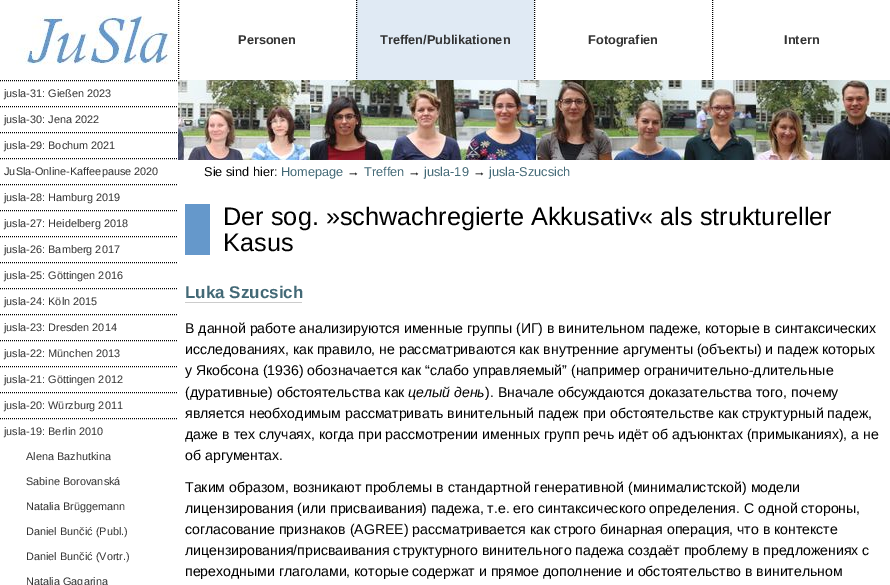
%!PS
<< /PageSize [890 585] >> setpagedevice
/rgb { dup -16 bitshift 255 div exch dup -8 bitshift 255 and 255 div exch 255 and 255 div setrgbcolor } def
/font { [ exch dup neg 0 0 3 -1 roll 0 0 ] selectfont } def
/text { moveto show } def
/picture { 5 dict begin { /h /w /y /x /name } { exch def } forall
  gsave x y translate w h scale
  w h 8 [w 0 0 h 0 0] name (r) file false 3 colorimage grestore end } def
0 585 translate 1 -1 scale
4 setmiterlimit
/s1 { /LiberationSans-Bold 12.75 font 16#333333 rgb } def
/s2 { /LiberationSans-Regular 10.9 font 16#333333 rgb } def
/s3 { /LiberationSans-Regular 12.75 font 16#000000 rgb } def
/s4 { /LiberationSans-Regular 12.75 font 16#436976 rgb } def
/s5 { /LiberationSans-Regular 25.3 font 16#000000 rgb } def
/s6 { /LiberationSans-Bold 17 font 16#436976 rgb } def
/s7 { /LiberationSans-Regular 14.1 font 16#000000 rgb } def
/s8 { /LiberationSans-Italic 14.1 font 16#000000 rgb } def
16#FFFFFF rgb
0 0 890 585 rectfill
(pic1.raw) 16 15 160 50 picture
16#000000 rgb
[1 1] 0 setdash
178.5 0 moveto 178.5 80 lineto stroke
s1
(Personen) 238 44 text
16#E0EAF4 rgb
356 0 178 80 rectfill
16#000000 rgb
356.5 0 moveto 356.5 80 lineto stroke
s1
(Treffen/Publikationen) 380 44 text
16#000000 rgb
534.5 0 moveto 534.5 80 lineto stroke
s1
(Fotografien) 588 44 text
16#000000 rgb
712.5 0 moveto 712.5 80 lineto stroke
s1
(Intern) 784 44 text
16#000000 rgb
0 80.5 moveto 178 80.5 lineto stroke
s2
(jusla-31: Gießen 2023) 4 97 text
16#000000 rgb
0 106.5 moveto 178 106.5 lineto stroke
s2
(jusla-30: Jena 2022) 4 123 text
16#000000 rgb
0 132.5 moveto 178 132.5 lineto stroke
s2
(jusla-29: Bochum 2021) 4 149 text
16#000000 rgb
0 158.5 moveto 178 158.5 lineto stroke
s2
(JuSla-Online-Kaffeepause 2020) 4 175 text
16#000000 rgb
0 184.5 moveto 178 184.5 lineto stroke
s2
(jusla-28: Hamburg 2019) 4 201 text
16#000000 rgb
0 210.5 moveto 178 210.5 lineto stroke
s2
(jusla-27: Heidelberg 2018) 4 227 text
16#000000 rgb
0 236.5 moveto 178 236.5 lineto stroke
s2
(jusla-26: Bamberg 2017) 4 253 text
16#000000 rgb
0 262.5 moveto 178 262.5 lineto stroke
s2
(jusla-25: Göttingen 2016) 4 279 text
16#000000 rgb
0 288.5 moveto 178 288.5 lineto stroke
s2
(jusla-24: Köln 2015) 4 305 text
16#000000 rgb
0 314.5 moveto 178 314.5 lineto stroke
s2
(jusla-23: Dresden 2014) 4 331 text
16#000000 rgb
0 340.5 moveto 178 340.5 lineto stroke
s2
(jusla-22: München 2013) 4 357 text
16#000000 rgb
0 366.5 moveto 178 366.5 lineto stroke
s2
(jusla-21: Göttingen 2012) 4 383 text
16#000000 rgb
0 392.5 moveto 178 392.5 lineto stroke
s2
(jusla-20: Würzburg 2011) 4 409 text
16#000000 rgb
0 418.5 moveto 178 418.5 lineto stroke
s2
(jusla-19: Berlin 2010) 4 435 text
(Alena Bazhutkina) 26 460 text
(Sabine Borovanská) 26 485 text
(Natalia Brüggemann) 26 510 text
(Daniel Bunčić \(Publ.\)) 26 535 text
(Daniel Bunčić \(Vortr.\)) 26 560 text
(Natalia Gagarina) 26 585 text
(pic2.raw) 178 80 712 80 picture
s3
(Sie sind hier:) 204 176 text
s4
(Homepage) 281 176 text
s3
(→) 347 176 text
s4
(Treffen) 364 176 text
s3
(→) 408 176 text
s4
(jusla-19) 424 176 text
s3
(→) 473 176 text
s4
(jusla-Szucsich) 489 176 text
16#6598CB rgb
185 204 25 51 rectfill
s5
(Der sog. »schwachregierte Akkusativ« als struktureller) 223 225 text
(Kasus) 223 251 text
s6
(Luka Szucsich) 185 298 text
16#CCCCCC rgb
185 302 117 1 rectfill
s7
(В данной работе анализируются именные группы \(ИГ\) в винительном падеже, которые в синтаксических) 185 333 text
(исследованиях, как правило, не рассматриваются как внутренние аргументы \(объекты\) и падеж которых) 185 354 text
(у Якобсона \(1936\) обозначается как “слабо управляемый” \(например ограничительно-длительные) 185 375 text
(\(дуративные\) обстоятельства как) 185 397 text
s8
(целый день) 408 397 text
s7
(\). Вначале обсуждаются доказательства того, почему) 485 397 text
(является необходимым рассматривать винительный падеж при обстоятельстве как структурный падеж,) 185 418 text
(даже в тех случаях, когда при рассмотрении именных групп речь идёт об адъюнктах \(примыканиях\), а не) 185 439 text
(об аргументах.) 185 460 text
(Таким образом, возникают проблемы в стандартной генеративной \(минималистской\) модели) 185 492 text
(лицензирования \(или присваивания\) падежа, т.е. его синтаксического определения. С одной стороны,) 185 513 text
(согласование признаков \(AGREE\) рассматривается как строго бинарная операция, что в контексте) 185 534 text
(лицензирования/присваивания структурного винительного падежа создаёт проблему в предложениях с) 185 555 text
(переходными глаголами, которые содержат и прямое дополнение и обстоятельство в винительном) 185 576 text
showpage
